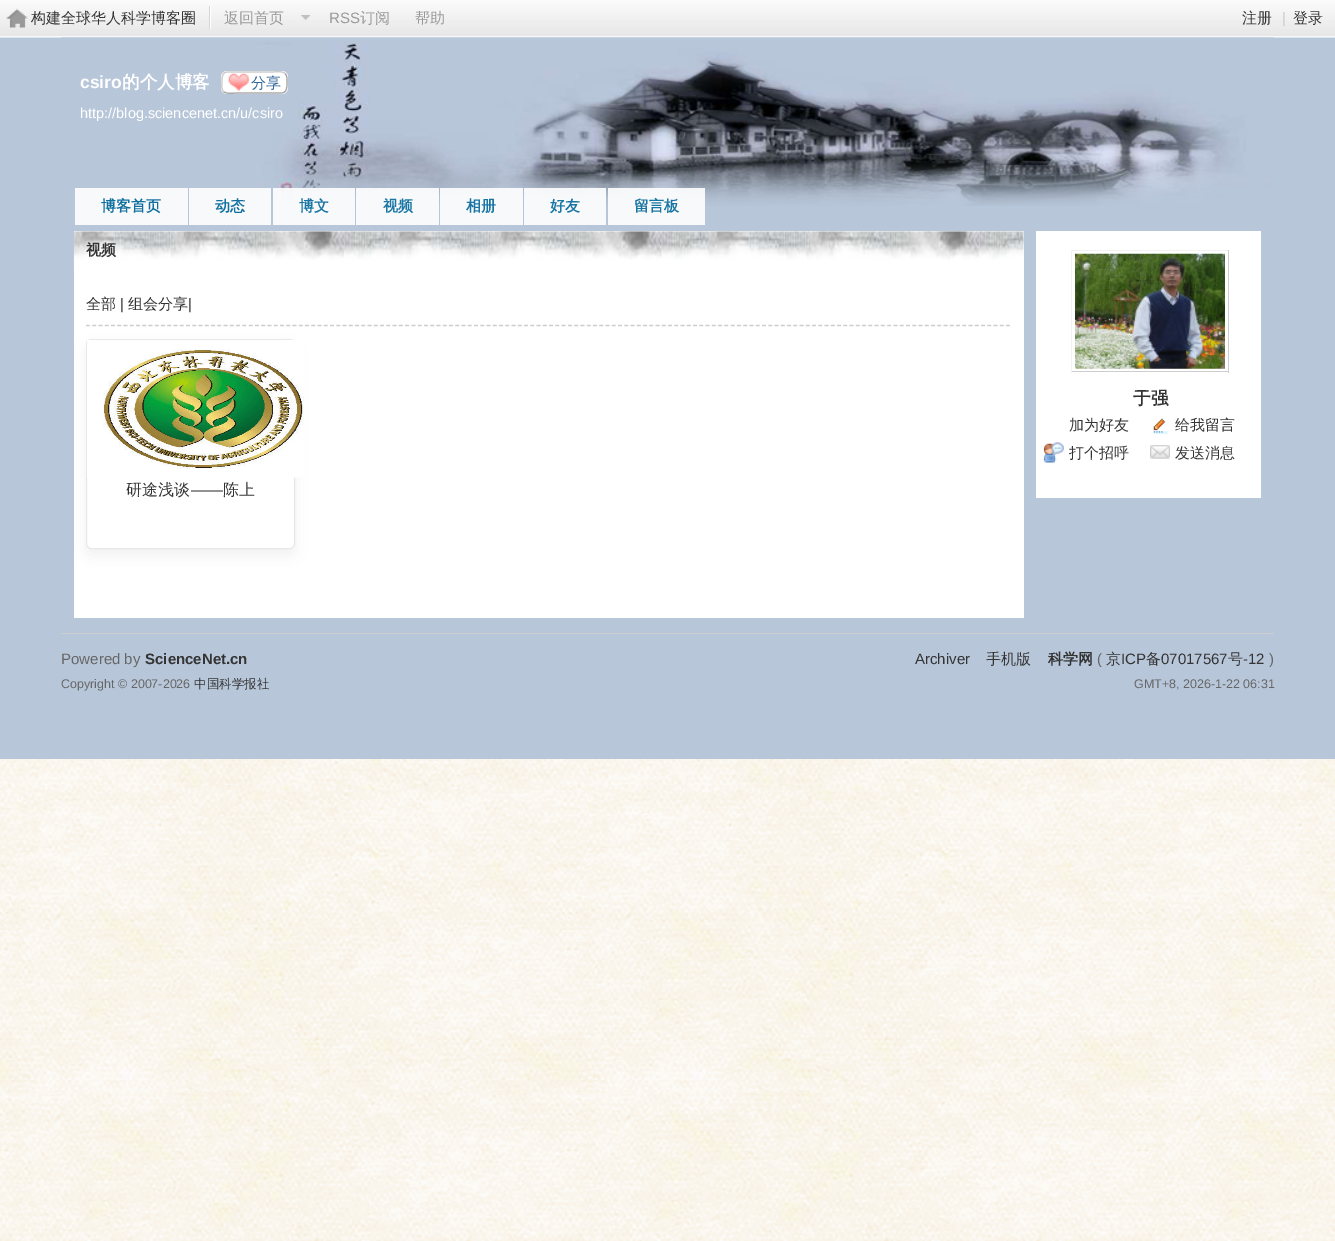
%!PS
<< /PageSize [1335 1241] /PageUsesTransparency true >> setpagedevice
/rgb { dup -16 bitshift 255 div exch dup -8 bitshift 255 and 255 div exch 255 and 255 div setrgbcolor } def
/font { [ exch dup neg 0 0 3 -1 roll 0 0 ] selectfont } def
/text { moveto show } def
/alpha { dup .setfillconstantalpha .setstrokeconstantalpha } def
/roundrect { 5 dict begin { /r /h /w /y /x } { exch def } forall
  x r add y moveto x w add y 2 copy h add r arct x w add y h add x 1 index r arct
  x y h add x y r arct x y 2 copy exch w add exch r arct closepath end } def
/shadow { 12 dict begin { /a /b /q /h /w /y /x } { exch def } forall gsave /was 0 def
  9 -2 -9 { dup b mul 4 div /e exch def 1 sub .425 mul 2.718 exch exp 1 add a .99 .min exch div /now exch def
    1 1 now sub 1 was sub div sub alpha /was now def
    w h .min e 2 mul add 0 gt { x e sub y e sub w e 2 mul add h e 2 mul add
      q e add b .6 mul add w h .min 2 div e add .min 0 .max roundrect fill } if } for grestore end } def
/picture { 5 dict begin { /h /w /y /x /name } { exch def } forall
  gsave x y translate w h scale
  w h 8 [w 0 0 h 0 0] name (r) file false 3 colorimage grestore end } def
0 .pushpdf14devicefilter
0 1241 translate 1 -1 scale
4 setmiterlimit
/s1 { /WenQuanYiZenHei-Medium 15 font 16#333333 rgb } def
/s2 { /WenQuanYiZenHei-Medium 15 font 16#999999 rgb } def
/s3 { /LiberationSans-Regular 15 font 16#999999 rgb } def
/s4 { /LiberationSans-Regular 15 font 16#CCCCCC rgb } def
/s5 { /LiberationSans-Bold 17.5 font 16#FFFFFF rgb } def
/s6 { /WenQuanYiZenHei-Bold 17.5 font 16#FFFFFF rgb } def
/s7 { /WenQuanYiZenHei-Medium 15 font 16#336699 rgb } def
/s8 { /LiberationSans-Regular 14.5 font 16#FFFFFF rgb } def
/s9 { /WenQuanYiZenHei-Bold 15 font 16#12709F rgb } def
/s10 { /WenQuanYiZenHei-Bold 15 font 16#1975A3 rgb } def
/s11 { /WenQuanYiZenHei-Bold 15 font 16#333333 rgb } def
/s12 { /LiberationSans-Regular 15 font 16#333333 rgb } def
/s13 { /WenQuanYiZenHei-Medium 16 font 16#333333 rgb } def
/s14 { /LiberationSans-Regular 16 font 16#333333 rgb } def
/s15 { /WenQuanYiZenHei-Bold 17.5 font 16#333333 rgb } def
/s16 { /LiberationSans-Regular 15 font 16#666666 rgb } def
/s17 { /LiberationSans-Bold 15 font 16#333333 rgb } def
/s18 { /LiberationSans-Regular 12.5 font 16#666666 rgb } def
/s19 { /WenQuanYiZenHei-Medium 12.5 font 16#333333 rgb } def
16#FFFFFF rgb
0 0 1335 1241 rectfill
(pic1.raw) 0 759 1335 482 picture
16#B7C6D9 rgb
0 37 1335 722 rectfill
(pic2.raw) 0 0 1335 38 picture
(pic3.raw) 6 8 22 20 picture
16#FFFFFF rgb
210 6 1 23 rectfill
16#D5D5D5 rgb
209 6 1 23 rectfill
s1
(构建全球华人科学博客圈) 31 23 text
s2
(返回首页) 224 23 text
(pic4.raw) 301 15 10 5 picture
s3
(RSS) 329 23 text
s2
(订阅) 360 23 text
(帮助) 415 23 text
s1
(注册) 1242 23 text
s4
(|) 1282 23 text
s1
(登录) 1293 23 text
(pic5.raw) 61 37 1213 169 picture
s5
(csiro) 80 88 text
s6
(的个人博客) 122 88 text
221 71 67 23 6 roundrect fill
(pic6.raw) 228 73 21 19 picture
16#A9A9A9 rgb
1.2 setlinewidth
285 73.5 moveto 287.5 76 287 79.5 287 82.5 curveto 287 94.5 284.5 93 272.5 93 curveto 236.5 93 lineto 233.5 93 226.5 94.5 223.5 91.5 curveto stroke
16#CCCCCC rgb
223.5 91.5 moveto 221 89 222 85.5 222 82.5 curveto 222 70.5 224 72 236.5 72 curveto 272.5 72 lineto 275 72 282 70.5 285 73.5 curveto stroke
s7
(分享) 251 88 text
s8
(http://blog.sciencenet.cn/u/csiro) 80 118 text
16#F8F9FB rgb
75 188 113 37 rectfill
s9
(博客首页) 101 211 text
16#F8F9FB rgb
189 188 82 37 rectfill
s9
(动态) 215 211 text
0.9 alpha
16#FFFFFF rgb
273 188 82 37 rectfill
1 alpha
s10
(博文) 299 211 text
0.9 alpha
16#FFFFFF rgb
356 188 83 37 rectfill
1 alpha
s10
(视频) 383 211 text
0.9 alpha
16#FFFFFF rgb
440 188 83 37 rectfill
1 alpha
s10
(相册) 466 211 text
0.9 alpha
16#FFFFFF rgb
524 188 82 37 rectfill
1 alpha
s10
(好友) 550 211 text
0.9 alpha
16#FFFFFF rgb
608 188 97 37 rectfill
1 alpha
s10
(留言板) 634 211 text
16#FFFFFF rgb
74 231 950 387 rectfill
(pic7.raw) 73 231 951 39 picture
s11
(视频) 86 255 text
16#CDCDCD rgb
[3.75 2.51] 0 setdash
86 325.5 moveto 1011 325.5 lineto stroke
s1
(全部) 86 309 text
s12
(|) 120 309 text
s1
(组会分享) 128 309 text
s12
(|) 188 309 text
gsave
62 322 moveto 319 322 lineto 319 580 lineto 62 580 lineto closepath 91 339 moveto 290 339 lineto 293 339 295 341 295 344 curveto 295 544 lineto 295 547 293 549 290 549 curveto 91 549 lineto 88 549 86 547 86 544 curveto 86 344 lineto 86 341 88 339 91 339 curveto closepath eoclip newpath
16#000000 rgb
86 346 209 210 5 7.5 0.06 shadow
grestore
16#E8E8E8 rgb
1 setlinewidth
[] 0 setdash
86.5 339.5 208 209 4.5 roundrect stroke
(pic8.raw) 87 340 217 138 picture
s13
(研途浅谈) 126 495 text
s14
(——) 191 495 text
s13
(陈上) 223 495 text
16#FFFFFF rgb
1036 231 225 267 rectfill
16#F2F2F2 rgb
1071 250 158 1 rectfill
16#CDCDCD rgb
1228 250 1 123 rectfill
1071 371 158 1 rectfill
16#F2F2F2 rgb
1071 250 1 123 rectfill
(pic9.raw) 1075 253 150 116 picture
s15
(于强) 1133 404 text
s1
(加为好友) 1069 430 text
(pic10.raw) 1153 418 15 16 picture
(给我留言) 1175 430 text
(pic11.raw) 1043 442 21 21 picture
(打个招呼) 1069 458 text
(pic12.raw) 1150 445 20 14 picture
(发送消息) 1175 458 text
16#CDCDCD rgb
61 633 1213 1 rectfill
s16
(Powered by) 61 664 text
s17
(ScienceNet.cn) 145 664 text
s18
(Copyright © 2007-2026) 61 688 text
s19
(中国科学报社) 194 688 text
s12
(Archiver) 915 664 text
s1
(手机版) 986 664 text
s11
(科学网) 1048 664 text
s16
(\() 1097 664 text
s1
(京) 1106 664 text
s12
(ICP) 1121 664 text
s1
(备) 1146 664 text
s12
(07017567) 1161 664 text
s1
(号) 1228 664 text
s12
(-12) 1243 664 text
s16
(\)) 1269 664 text
s18
(GMT+8, 2026-1-22 06:31) 1134 688 text
.poppdf14devicefilter showpage
